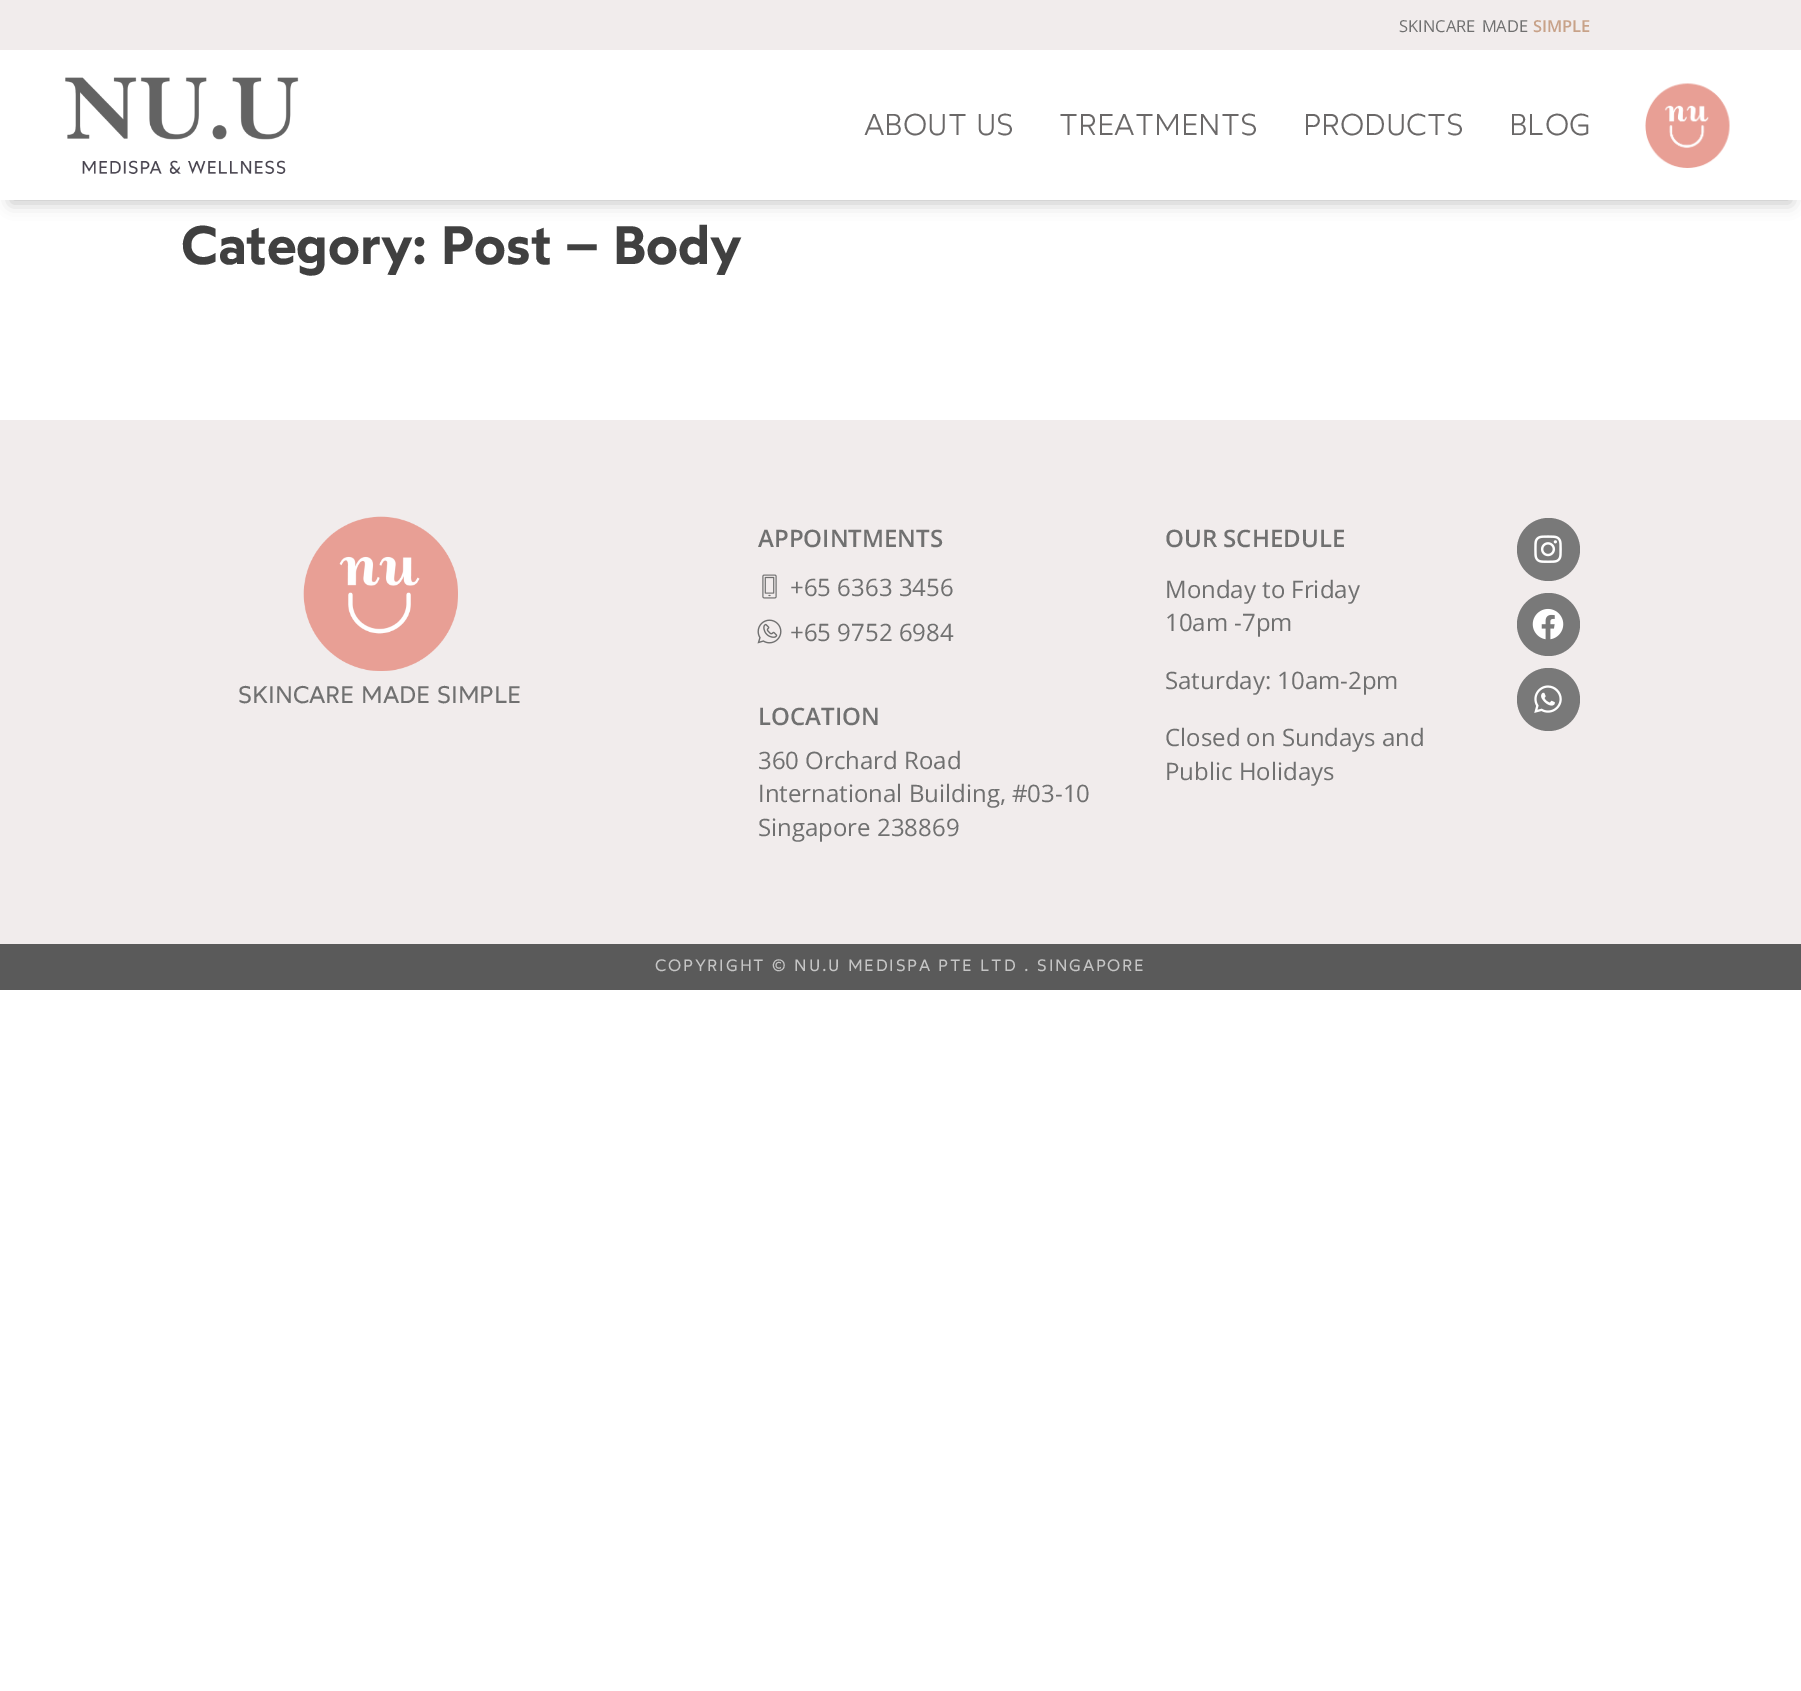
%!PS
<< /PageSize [1801 1691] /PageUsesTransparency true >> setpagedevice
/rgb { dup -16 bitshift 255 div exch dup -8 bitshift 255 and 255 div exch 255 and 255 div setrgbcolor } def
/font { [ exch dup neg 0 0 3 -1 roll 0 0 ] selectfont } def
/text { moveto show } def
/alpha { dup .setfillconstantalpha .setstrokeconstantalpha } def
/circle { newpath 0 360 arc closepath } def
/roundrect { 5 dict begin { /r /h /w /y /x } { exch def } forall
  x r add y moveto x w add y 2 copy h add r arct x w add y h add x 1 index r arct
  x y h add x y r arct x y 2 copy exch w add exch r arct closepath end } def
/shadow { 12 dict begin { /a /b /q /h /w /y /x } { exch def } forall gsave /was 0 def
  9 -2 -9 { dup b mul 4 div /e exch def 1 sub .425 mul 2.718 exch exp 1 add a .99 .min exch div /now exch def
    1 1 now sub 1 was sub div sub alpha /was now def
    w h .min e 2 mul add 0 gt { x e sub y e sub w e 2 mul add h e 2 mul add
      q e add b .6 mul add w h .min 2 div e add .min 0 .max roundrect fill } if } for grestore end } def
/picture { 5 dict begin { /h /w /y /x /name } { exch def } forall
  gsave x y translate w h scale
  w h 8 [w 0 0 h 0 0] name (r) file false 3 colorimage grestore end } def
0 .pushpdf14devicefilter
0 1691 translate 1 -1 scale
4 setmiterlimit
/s1 { /OpenSans-SemiBold 16.5 font 16#C8A289 rgb } def
/s2 { /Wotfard-Light 30 font 16#6A6868 rgb } def
/s3 { /Wotfard-SemiBold 54 font 16#404040 rgb } def
/s4 { /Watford-Regular 24 font 16#707070 rgb } def
/s5 { /OpenSans-SemiBold 24 font 16#707070 rgb } def
/s6 { /OpenSans-Regular 24 font 16#707070 rgb } def
16#FFFFFF rgb
0 0 1801 1691 rectfill
16#F1ECEC rgb
0 0 1801 50 rectfill
/OpenSans-Regular 16.5 font
16#707070 rgb
1399 32 moveto 2 0 32 (SKINCARE MADE) widthshow
s1
(SIMPLE) 1533 32 text
gsave
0 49 moveto 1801 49 lineto 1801 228 lineto 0 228 lineto closepath 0 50 moveto 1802 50 lineto 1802 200 lineto 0 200 lineto closepath eoclip newpath
16#000000 rgb
11 74 1780 129 0 8 0.24 shadow
grestore
(pic1.raw) 65 77 234 97 picture
s2
(ABOUT US) 864 135 text
(TREATMENTS) 1059 135 text
(PRODUCTS) 1303 135 text
(BLOG) 1509 135 text
(pic2.raw) 1645 83 85 85 picture
s3
(Category: Post – Body) 181 264 text
16#F1ECEC rgb
0 420 1801 524 rectfill
(pic3.raw) 303 516 155 155 picture
s4
(SKINCARE MADE SIMPLE) 238 703 text
s5
(APPOINTMENTS) 758 547 text
(pic4.raw) 762 574 15 25 picture
s6
(+65 6363 3456) 790 596 text
(pic5.raw) 757 619 25 25 picture
(+65 9752 6984) 790 641 text
s5
(LOCATION) 758 725 text
s6
(360 Orchard Road) 758 769 text
(International Building, #03-10) 758 802 text
(Singapore 238869) 758 836 text
s5
(OUR SCHEDULE) 1165 547 text
s6
(Monday to Friday) 1165 598 text
(10am -7pm) 1165 631 text
(Saturday: 10am-2pm) 1165 689 text
(Closed on Sundays and) 1165 746 text
(Public Holidays) 1165 780 text
16#797979 rgb
1548.5 549.5 31.5 circle fill
(pic6.raw) 1534 535 28 28 picture
1548.5 624.5 31.5 circle fill
(pic7.raw) 1532 608 32 32 picture
1548.5 699.5 31.5 circle fill
(pic8.raw) 1534 685 28 28 picture
16#5A5A5A rgb
0 944 1801 46 rectfill
/Watford-Regular 16.5 font
16#C5C5C5 rgb
655 971 moveto 1.8 0 (COPYRIGHT © NU.U MEDISPA PTE LTD . SINGAPORE) ashow
.poppdf14devicefilter showpage
